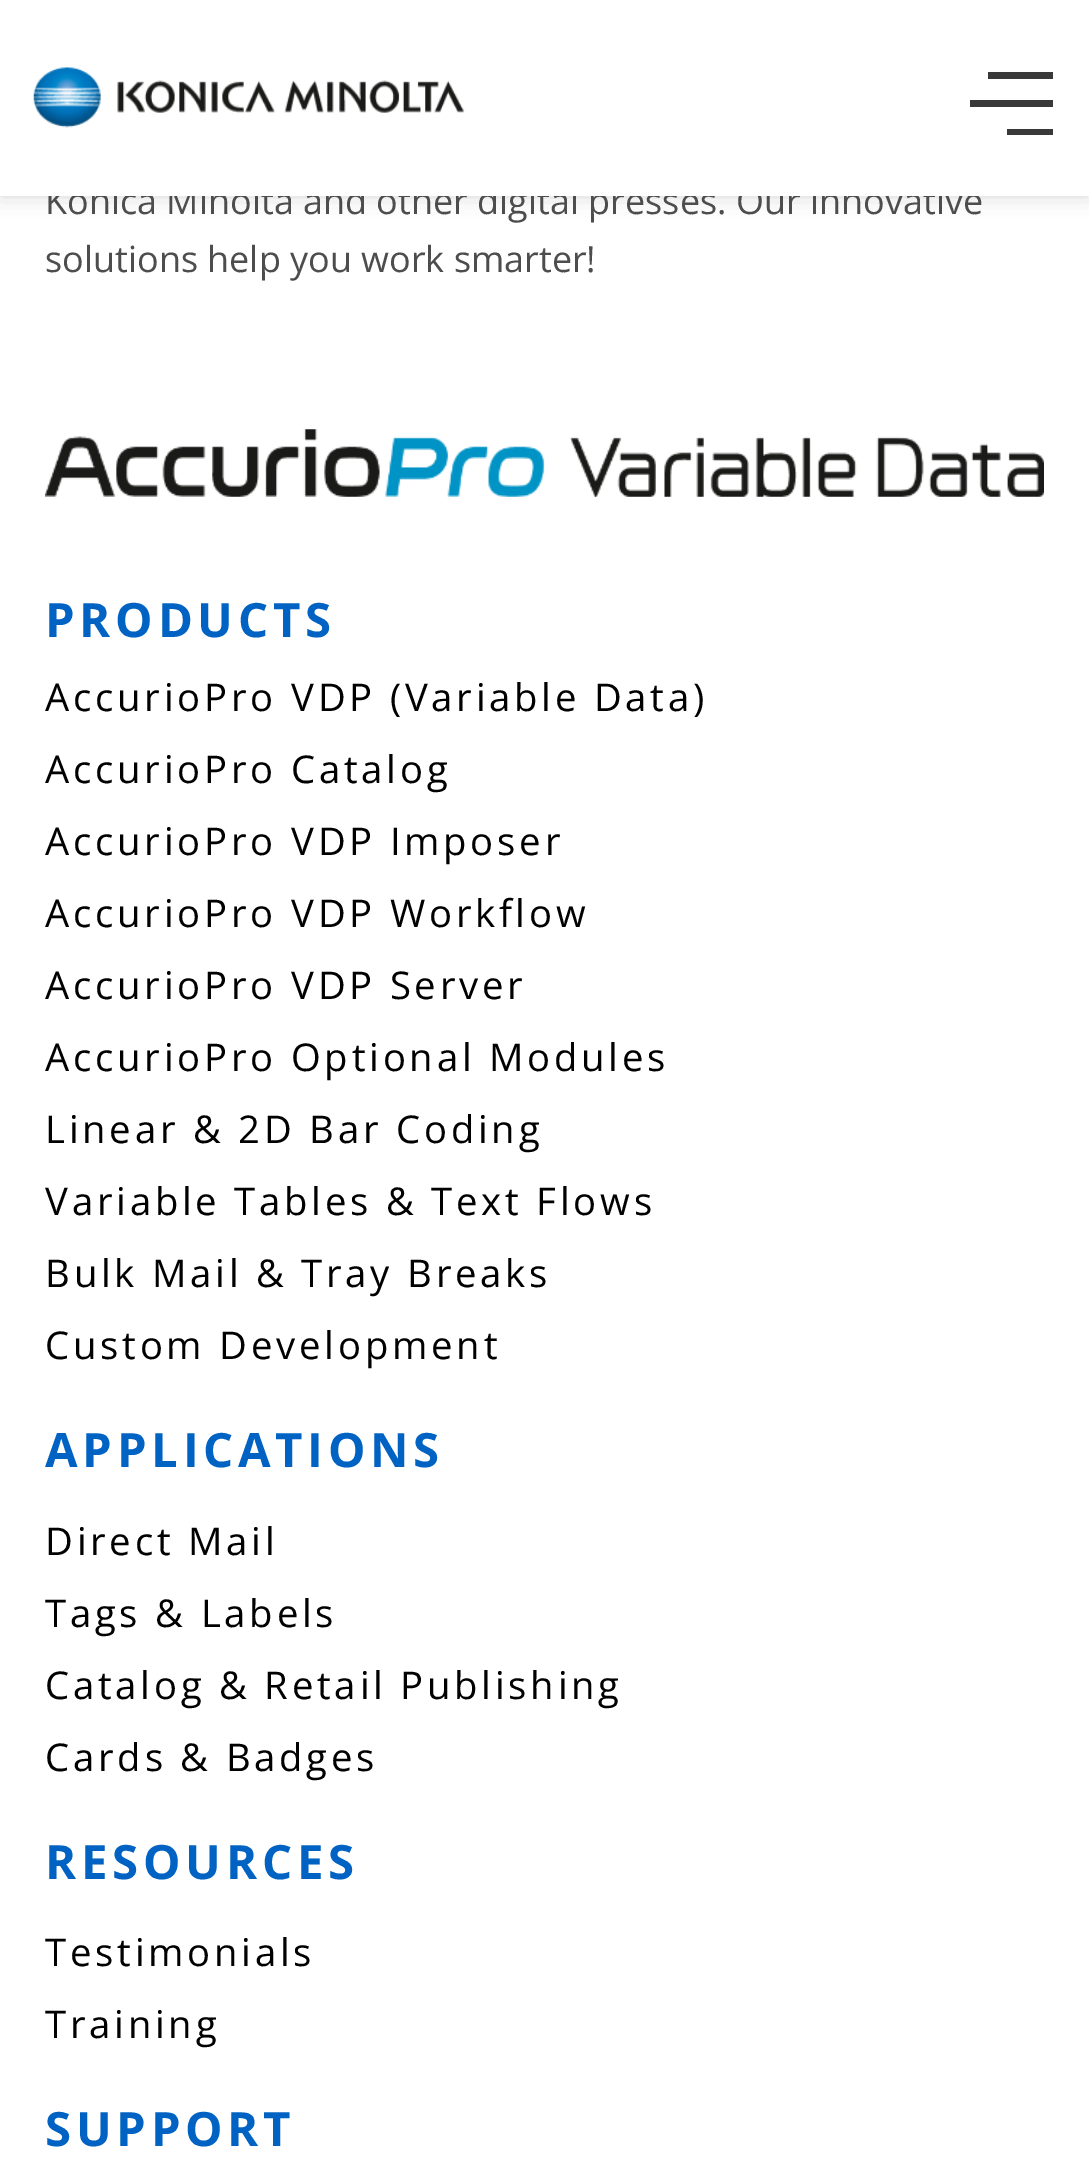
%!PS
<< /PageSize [1089 2158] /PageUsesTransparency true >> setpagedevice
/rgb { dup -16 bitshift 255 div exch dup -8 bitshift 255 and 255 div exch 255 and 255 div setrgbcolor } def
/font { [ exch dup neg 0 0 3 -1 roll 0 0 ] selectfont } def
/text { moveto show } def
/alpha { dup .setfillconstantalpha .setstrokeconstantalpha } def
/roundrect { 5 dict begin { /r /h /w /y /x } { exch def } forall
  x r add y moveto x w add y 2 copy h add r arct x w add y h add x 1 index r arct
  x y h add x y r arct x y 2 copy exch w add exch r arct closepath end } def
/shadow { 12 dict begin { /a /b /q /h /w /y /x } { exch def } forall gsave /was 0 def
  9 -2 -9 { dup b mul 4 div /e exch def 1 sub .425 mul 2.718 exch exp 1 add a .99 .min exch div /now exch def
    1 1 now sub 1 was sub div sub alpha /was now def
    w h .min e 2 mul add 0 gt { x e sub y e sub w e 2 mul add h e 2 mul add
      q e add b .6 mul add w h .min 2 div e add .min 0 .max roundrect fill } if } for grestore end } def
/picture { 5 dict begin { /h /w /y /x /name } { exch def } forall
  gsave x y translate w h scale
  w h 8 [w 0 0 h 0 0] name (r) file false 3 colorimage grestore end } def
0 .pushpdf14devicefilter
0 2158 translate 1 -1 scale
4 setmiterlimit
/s1 { /OpenSans-Regular 36 font 16#4D4D4D rgb } def
16#FFFFFF rgb
0 0 1089 2158 rectfill
16#000000 rgb
0 0 1089 196 0 11 0.16 shadow
s1
(Konica Minolta and other digital presses. Our innovative) 45 214 text
16#FFFFFF rgb
0 0 1089 196 rectfill
(pic1.raw) 33 67 432 61 picture
16#3A393A rgb
1007 129 46 6 rectfill
970 100 83 7 rectfill
988 72 65 7 rectfill
s1
(solutions help you work smarter!) 45 272 text
(pic2.raw) 45 429 999 68 picture
/OpenSans-Bold 47.25 font
16#0062C2 rgb
45 637 moveto 4.75 0 (PRODUCTS) ashow
/OpenSans-Regular 38.25 font
16#000000 rgb
45 711 moveto 3.8 0 (AccurioPro VDP \(Variable Data\)) ashow
45 783 moveto 3.8 0 (AccurioPro Catalog) ashow
45 855 moveto 3.8 0 (AccurioPro VDP Imposer) ashow
45 927 moveto 3.8 0 (AccurioPro VDP Workflow) ashow
45 999 moveto 3.8 0 (AccurioPro VDP Server) ashow
45 1071 moveto 3.8 0 (AccurioPro Optional Modules) ashow
45 1143 moveto 3.8 0 (Linear & 2D Bar Coding) ashow
45 1215 moveto 3.8 0 (Variable Tables & Text Flows) ashow
45 1287 moveto 3.8 0 (Bulk Mail & Tray Breaks) ashow
45 1359 moveto 3.8 0 (Custom Development) ashow
/OpenSans-Bold 47.25 font
16#0062C2 rgb
45 1467 moveto 4.75 0 (APPLICATIONS) ashow
/OpenSans-Regular 38.25 font
16#000000 rgb
45 1555 moveto 3.8 0 (Direct Mail) ashow
45 1627 moveto 3.8 0 (Tags & Labels) ashow
45 1699 moveto 3.8 0 (Catalog & Retail Publishing) ashow
45 1771 moveto 3.8 0 (Cards & Badges) ashow
/OpenSans-Bold 47.25 font
16#0062C2 rgb
45 1879 moveto 4.75 0 (RESOURCES) ashow
/OpenSans-Regular 38.25 font
16#000000 rgb
45 1966 moveto 3.8 0 (Testimonials) ashow
45 2038 moveto 3.8 0 (Training) ashow
/OpenSans-Bold 47.25 font
16#0062C2 rgb
45 2146 moveto 4.75 0 (SUPPORT) ashow
.poppdf14devicefilter showpage
